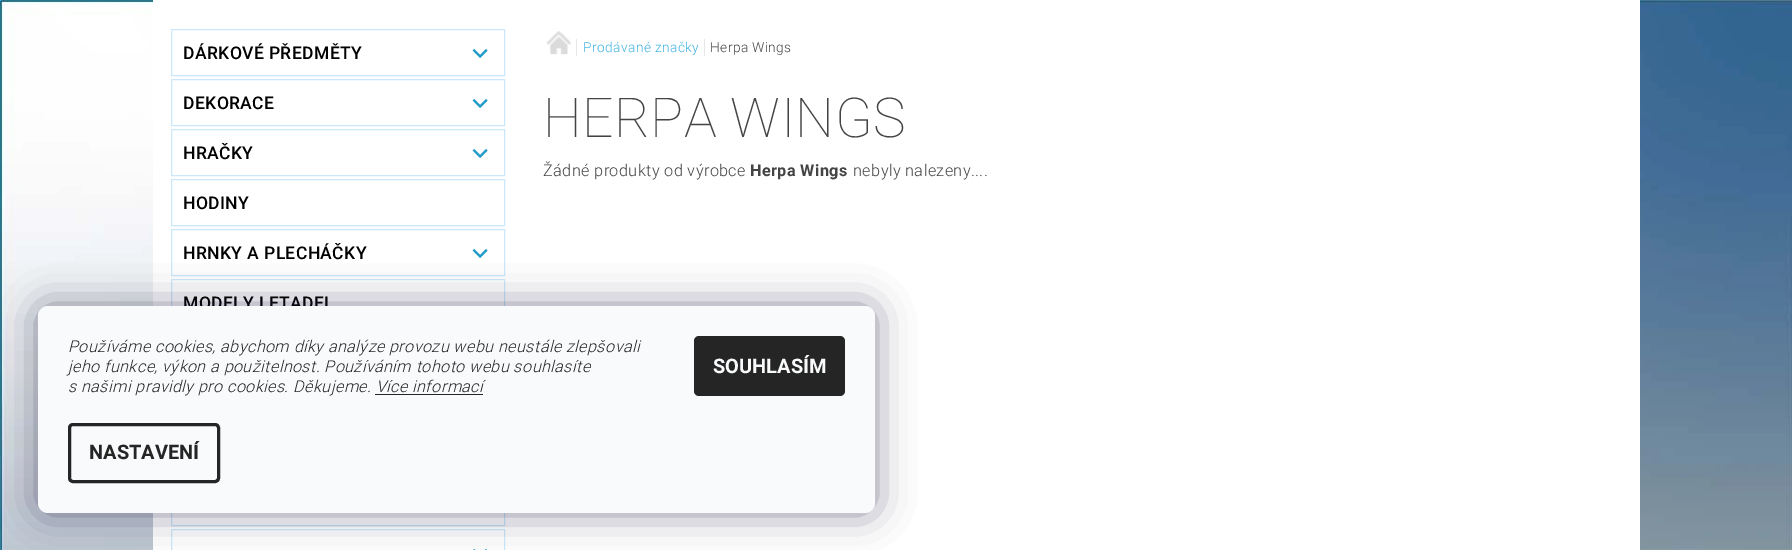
%!PS
<< /PageSize [1792 550] /PageUsesTransparency true >> setpagedevice
/rgb { dup -16 bitshift 255 div exch dup -8 bitshift 255 and 255 div exch 255 and 255 div setrgbcolor } def
/font { [ exch dup neg 0 0 3 -1 roll 0 0 ] selectfont } def
/text { moveto show } def
/alpha { dup .setfillconstantalpha .setstrokeconstantalpha } def
/roundrect { 5 dict begin { /r /h /w /y /x } { exch def } forall
  x r add y moveto x w add y 2 copy h add r arct x w add y h add x 1 index r arct
  x y h add x y r arct x y 2 copy exch w add exch r arct closepath end } def
/shadow { 12 dict begin { /a /b /q /h /w /y /x } { exch def } forall gsave /was 0 def
  9 -2 -9 { dup b mul 4 div /e exch def 1 sub .425 mul 2.718 exch exp 1 add a .99 .min exch div /now exch def
    1 1 now sub 1 was sub div sub alpha /was now def
    w h .min e 2 mul add 0 gt { x e sub y e sub w e 2 mul add h e 2 mul add
      q e add b .6 mul add w h .min 2 div e add .min 0 .max roundrect fill } if } for grestore end } def
/picture { 5 dict begin { /h /w /y /x /name } { exch def } forall
  gsave x y translate w h scale
  w h 8 [w 0 0 h 0 0] name (r) file false 3 colorimage grestore end } def
0 .pushpdf14devicefilter
0 550 translate 1 -1 scale
4 setmiterlimit
/s1 { /Roboto-Bold 20 font 16#252525 rgb } def
/s2 { /Roboto-Bold 20 font 16#F8FAFB rgb } def
16#FFFFFF rgb
0 0 1792 550 rectfill
(pic1.raw) 0 0 1792 550 picture
153 0 1487 550 rectfill
16#CBE8FB rgb
171.5 29.5 333 46 rectstroke
/Roboto-Medium 17.5 font
16#000000 rgb
183 59 moveto 0.4 0 (DÁRKOVÉ PŘEDMĚTY) ashow
(pic2.raw) 472 48 16 11 picture
16#CBE8FB rgb
171.5 79.5 333 46 rectstroke
16#000000 rgb
183 109 moveto 0.4 0 (DEKORACE) ashow
(pic2.raw) 472 98 16 11 picture
16#CBE8FB rgb
171.5 129.5 333 46 rectstroke
16#000000 rgb
183 159 moveto 0.4 0 (HRAČKY) ashow
(pic2.raw) 472 148 16 11 picture
16#CBE8FB rgb
171.5 179.5 333 46 rectstroke
16#000000 rgb
183 209 moveto 0.4 0 (HODINY) ashow
16#CBE8FB rgb
171.5 229.5 333 46 rectstroke
16#000000 rgb
183 259 moveto 0.4 0 (HRNKY A PLECHÁČKY) ashow
(pic2.raw) 472 248 16 11 picture
16#CBE8FB rgb
171.5 279.5 333 46 rectstroke
16#000000 rgb
183 309 moveto 0.4 0 (MODELY LETADEL) ashow
16#CBE8FB rgb
171.5 479.5 333 46 rectstroke
171.5 529.5 333 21 rectstroke
(pic3.raw) 473 548 14 2 picture
(pic4.raw) 546 31 25 24 picture
16#E7E7E7 rgb
576 39 1 17 rectfill
/Roboto-Light 13.75 font
16#40B3DF rgb
583 52 moveto 0.4 0 (Prodávané značky) ashow
16#E7E7E7 rgb
704 39 1 17 rectfill
16#444444 rgb
710 52 moveto 0.4 0 (Herpa Wings) ashow
/Roboto-Thin 55 font
543 137 moveto 0.4 0 (HERPA WINGS) ashow
/Roboto-Light 16.25 font
543 176 moveto 0.4 0 (Žádné produkty od výrobce) ashow
/Roboto-Bold 16.25 font
750 176 moveto 0.4 0 (Herpa Wings) ashow
/Roboto-Light 16.25 font
853 176 moveto 0.4 0 (nebyly nalezeny....) ashow
16#1B1939 rgb
38 306 837 207 10 19 0.5 shadow
16#F8FAFB rgb
38 306 837 207 10 roundrect fill
/Roboto-LightItalic 16.25 font
16#252525 rgb
68 352 moveto 0.4 0 (Používáme cookies, abychom díky analýze provozu webu neustále zlepšovali) ashow
68 372 moveto 0.4 0 (jeho funkce, výkon a použitelnost. Používáním tohoto webu souhlasíte) ashow
68 392 moveto 0.4 0 (s našimi pravidly pro cookies. Děkujeme. Více informací) ashow
375 394 108 1 rectfill
3 setlinewidth
69.5 424.5 149 57 3.5 roundrect stroke
s1
(NASTAVENÍ) 89 459 text
694 336 151 60 5 roundrect fill
s2
(SOUHLASÍM) 713 373 text
.poppdf14devicefilter showpage
